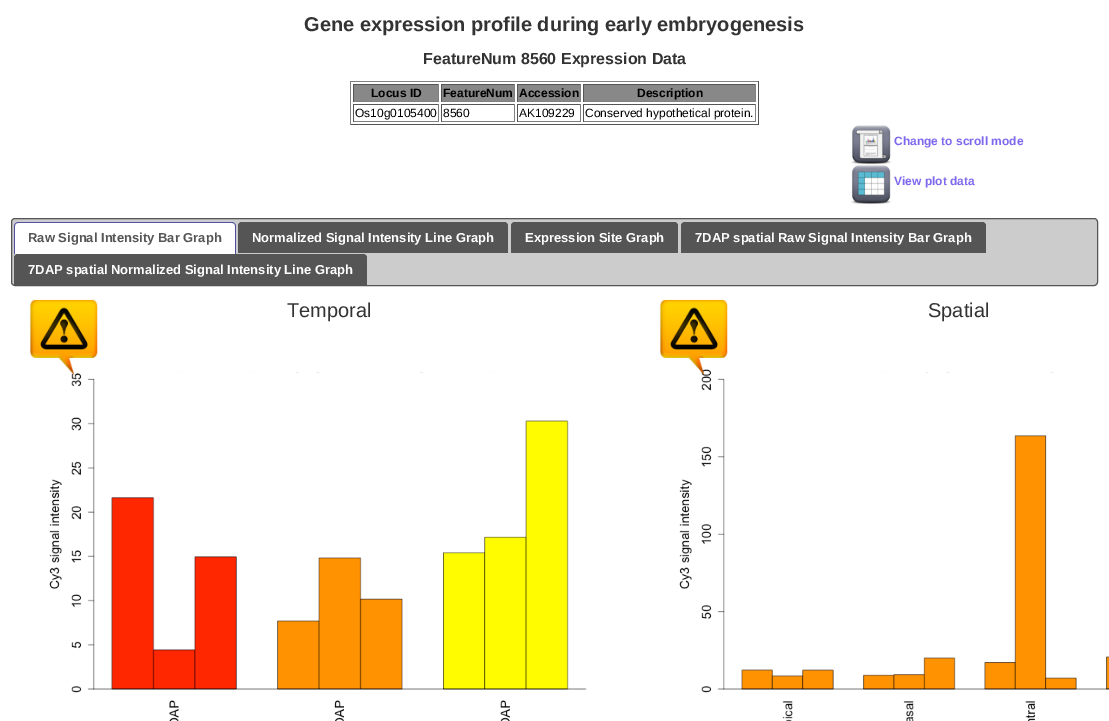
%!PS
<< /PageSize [1109 721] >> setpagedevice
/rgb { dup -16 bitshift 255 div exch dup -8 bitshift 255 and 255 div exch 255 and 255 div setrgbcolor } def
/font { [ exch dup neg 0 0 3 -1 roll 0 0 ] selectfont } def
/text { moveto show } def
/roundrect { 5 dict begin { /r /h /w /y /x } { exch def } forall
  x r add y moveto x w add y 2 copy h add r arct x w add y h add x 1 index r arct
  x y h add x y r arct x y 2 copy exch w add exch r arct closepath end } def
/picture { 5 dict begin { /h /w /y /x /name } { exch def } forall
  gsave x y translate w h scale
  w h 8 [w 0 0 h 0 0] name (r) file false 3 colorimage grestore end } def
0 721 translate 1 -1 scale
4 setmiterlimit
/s1 { /LiberationSans-Bold 20 font 16#333333 rgb } def
/s2 { /LiberationSans-Bold 16 font 16#333333 rgb } def
/s3 { /LiberationSans-Bold 12 font 16#000000 rgb } def
/s4 { /LiberationSans-Regular 12 font 16#000000 rgb } def
/s5 { /LiberationSans-Bold 12 font 16#7E68EE rgb } def
/s6 { /LiberationSans-Bold 13 font 16#555555 rgb } def
/s7 { /LiberationSans-Bold 13 font 16#FFFFFF rgb } def
/s8 { /LiberationSans-Regular 20 font 16#333333 rgb } def
16#FFFFFF rgb
0 0 1109 721 rectfill
s1
(Gene expression profile during early embryogenesis) 304 31 text
s2
(FeatureNum 8560 Expression Data) 423 64 text
16#808080 rgb
350 81 409 1 rectfill
16#555555 rgb
758 81 1 44 rectfill
350 124 409 1 rectfill
16#808080 rgb
350 81 1 44 rectfill
16#888888 rgb
354 85 84 16 rectfill
16#555555 rgb
353 84 86 1 rectfill
16#808080 rgb
438 84 1 18 rectfill
353 101 86 1 rectfill
16#555555 rgb
353 84 1 18 rectfill
s3
(Locus ID) 371 97 text
16#888888 rgb
442 85 72 16 rectfill
16#555555 rgb
441 84 74 1 rectfill
16#808080 rgb
514 84 1 18 rectfill
441 101 74 1 rectfill
16#555555 rgb
441 84 1 18 rectfill
s3
(FeatureNum) 443 97 text
16#888888 rgb
518 85 62 16 rectfill
16#555555 rgb
517 84 64 1 rectfill
16#808080 rgb
580 84 1 18 rectfill
517 101 64 1 rectfill
16#555555 rgb
517 84 1 18 rectfill
s3
(Accession) 519 97 text
16#888888 rgb
584 85 171 16 rectfill
16#555555 rgb
583 84 173 1 rectfill
16#808080 rgb
755 84 1 18 rectfill
583 101 173 1 rectfill
16#555555 rgb
583 84 1 18 rectfill
s3
(Description) 637 97 text
16#555555 rgb
353 104 86 1 rectfill
16#808080 rgb
438 104 1 18 rectfill
353 121 86 1 rectfill
16#555555 rgb
353 104 1 18 rectfill
s4
(Os10g0105400) 355 117 text
16#555555 rgb
441 104 74 1 rectfill
16#808080 rgb
514 104 1 18 rectfill
441 121 74 1 rectfill
16#555555 rgb
441 104 1 18 rectfill
s4
(8560) 443 117 text
16#555555 rgb
517 104 64 1 rectfill
16#808080 rgb
580 104 1 18 rectfill
517 121 64 1 rectfill
16#555555 rgb
517 104 1 18 rectfill
s4
(AK109229) 519 117 text
16#555555 rgb
583 104 173 1 rectfill
16#808080 rgb
755 104 1 18 rectfill
583 121 173 1 rectfill
16#555555 rgb
583 104 1 18 rectfill
s4
(Conserved hypothetical protein.) 585 117 text
(pic1.raw) 851 125 40 40 picture
s5
(Change to scroll mode) 894 145 text
(pic2.raw) 851 165 40 39 picture
(View plot data) 894 185 text
16#CCCCCC rgb
11.5 218.5 1086 67 3.5 roundrect gsave fill grestore
16#555555 rgb
stroke
16#FFFFFF rgb
18 222 moveto 232 222 lineto 234 222 236 224 236 226 curveto 236 254 lineto 14 254 lineto 14 226 lineto 14 224 16 222 18 222 curveto closepath fill
16#4F529F rgb
18 222 moveto 232 222 lineto 234 222 236 224 236 226 curveto 236 254 lineto 14 254 lineto 14 226 lineto 14 224 16 222 18 222 curveto closepath 18 223 moveto 232 223 lineto 234 223 235 224 235 226 curveto 235 254 lineto 15 254 lineto 15 226 lineto 15 224 16 223 18 223 curveto closepath eofill
s6
(Raw Signal Intensity Bar Graph) 28 242 text
242 222 moveto 504 222 lineto 506 222 508 224 508 226 curveto 508 253 lineto 238 253 lineto 238 226 lineto 238 224 240 222 242 222 curveto closepath fill
242 222 moveto 504 222 lineto 506 222 508 224 508 226 curveto 508 253 lineto 238 253 lineto 238 226 lineto 238 224 240 222 242 222 curveto closepath 242 223 moveto 504 223 lineto 506 223 507 224 507 226 curveto 507 253 lineto 239 253 lineto 239 226 lineto 239 224 240 223 242 223 curveto closepath eofill
s7
(Normalized Signal Intensity Line Graph) 252 242 text
16#555555 rgb
515 222 moveto 674 222 lineto 676 222 678 224 678 226 curveto 678 253 lineto 511 253 lineto 511 226 lineto 511 224 513 222 515 222 curveto closepath fill
515 222 moveto 674 222 lineto 676 222 678 224 678 226 curveto 678 253 lineto 511 253 lineto 511 226 lineto 511 224 513 222 515 222 curveto closepath 515 223 moveto 674 223 lineto 676 223 677 224 677 226 curveto 677 253 lineto 512 253 lineto 512 226 lineto 512 224 513 223 515 223 curveto closepath eofill
s7
(Expression Site Graph) 525 242 text
16#555555 rgb
685 222 moveto 982 222 lineto 984 222 986 224 986 226 curveto 986 253 lineto 681 253 lineto 681 226 lineto 681 224 683 222 685 222 curveto closepath fill
685 222 moveto 982 222 lineto 984 222 986 224 986 226 curveto 986 253 lineto 681 253 lineto 681 226 lineto 681 224 683 222 685 222 curveto closepath 685 223 moveto 982 223 lineto 984 223 985 224 985 226 curveto 985 253 lineto 682 253 lineto 682 226 lineto 682 224 683 223 685 223 curveto closepath eofill
s7
(7DAP spatial Raw Signal Intensity Bar Graph) 695 242 text
16#555555 rgb
18 254 moveto 363 254 lineto 365 254 367 256 367 258 curveto 367 285 lineto 14 285 lineto 14 258 lineto 14 256 16 254 18 254 curveto closepath fill
18 254 moveto 363 254 lineto 365 254 367 256 367 258 curveto 367 285 lineto 14 285 lineto 14 258 lineto 14 256 16 254 18 254 curveto closepath 18 255 moveto 363 255 lineto 365 255 366 256 366 258 curveto 366 285 lineto 15 285 lineto 15 258 lineto 15 256 16 255 18 255 curveto closepath eofill
s7
(7DAP spatial Normalized Signal Intensity Line Graph) 28 274 text
(pic4.raw) 49 357 538 364 picture
(pic3.raw) 29 299 69 77 picture
s8
(Temporal) 287 317 text
16#FFFFFF rgb
143 357 394 15 rectfill
(pic6.raw) 679 357 430 364 picture
(pic5.raw) 659 299 69 76 picture
s8
(Spatial) 928 317 text
16#FFFFFF rgb
773 357 336 15 rectfill
showpage
